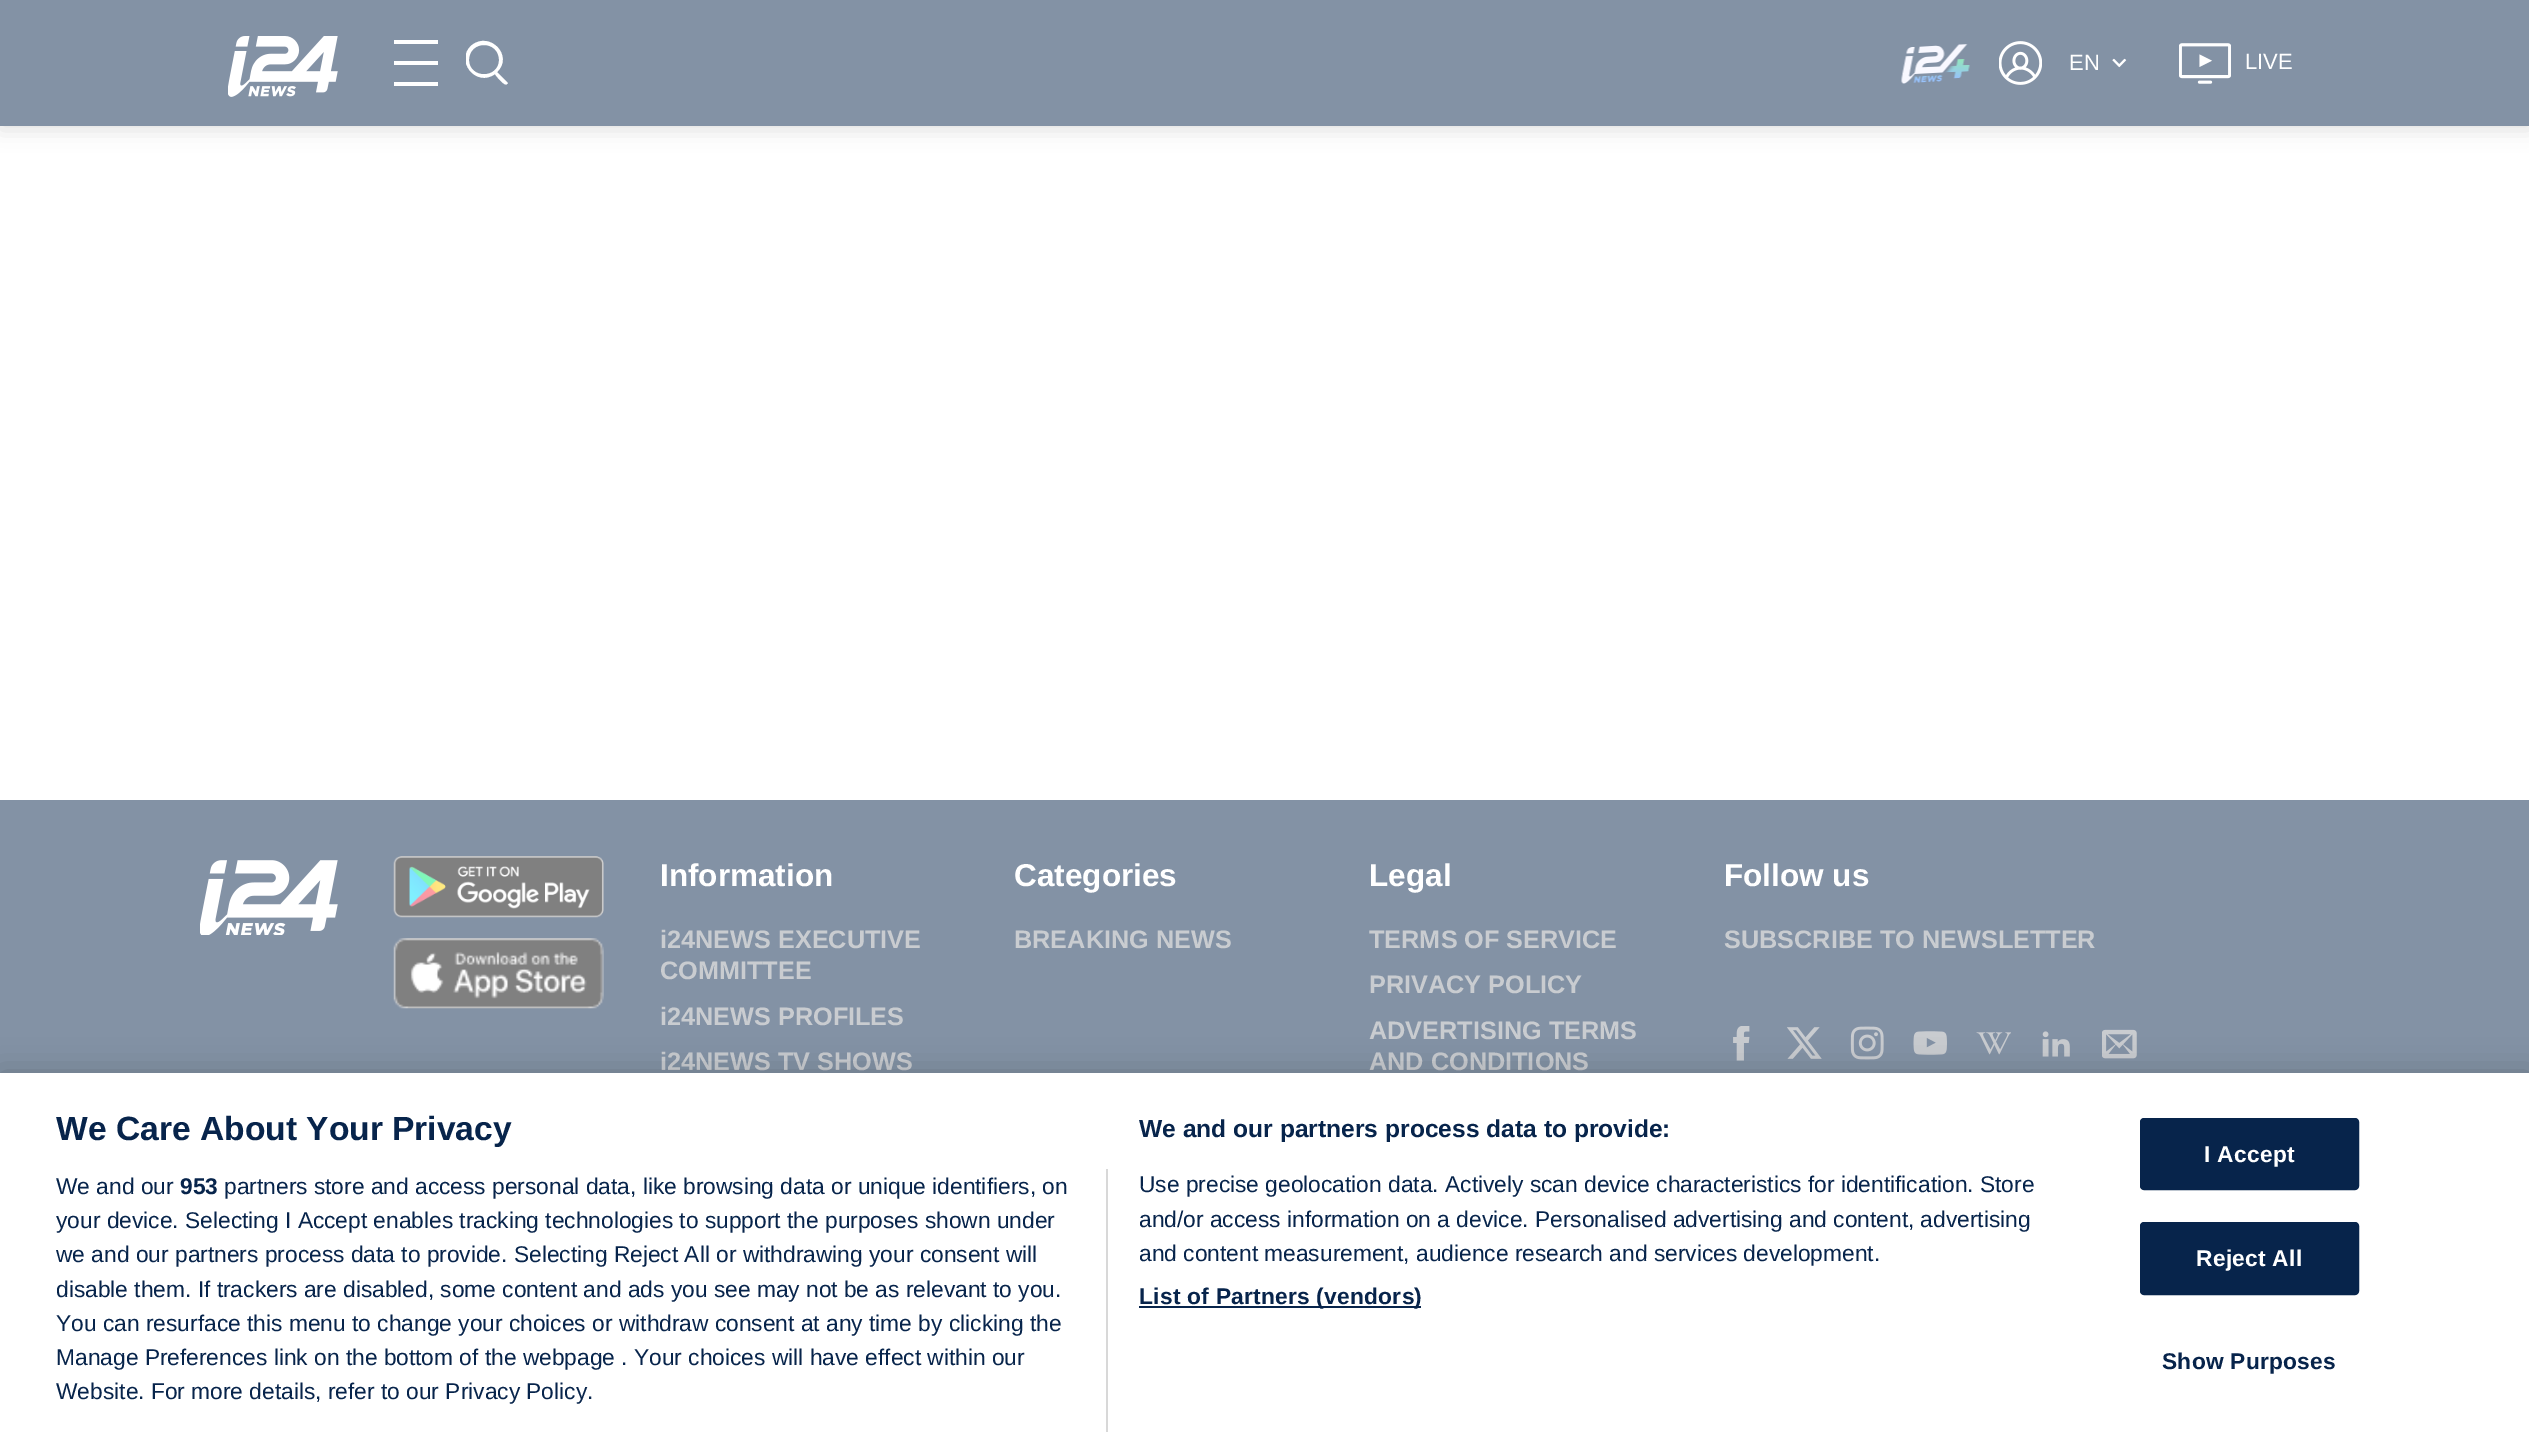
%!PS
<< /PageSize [2529 1449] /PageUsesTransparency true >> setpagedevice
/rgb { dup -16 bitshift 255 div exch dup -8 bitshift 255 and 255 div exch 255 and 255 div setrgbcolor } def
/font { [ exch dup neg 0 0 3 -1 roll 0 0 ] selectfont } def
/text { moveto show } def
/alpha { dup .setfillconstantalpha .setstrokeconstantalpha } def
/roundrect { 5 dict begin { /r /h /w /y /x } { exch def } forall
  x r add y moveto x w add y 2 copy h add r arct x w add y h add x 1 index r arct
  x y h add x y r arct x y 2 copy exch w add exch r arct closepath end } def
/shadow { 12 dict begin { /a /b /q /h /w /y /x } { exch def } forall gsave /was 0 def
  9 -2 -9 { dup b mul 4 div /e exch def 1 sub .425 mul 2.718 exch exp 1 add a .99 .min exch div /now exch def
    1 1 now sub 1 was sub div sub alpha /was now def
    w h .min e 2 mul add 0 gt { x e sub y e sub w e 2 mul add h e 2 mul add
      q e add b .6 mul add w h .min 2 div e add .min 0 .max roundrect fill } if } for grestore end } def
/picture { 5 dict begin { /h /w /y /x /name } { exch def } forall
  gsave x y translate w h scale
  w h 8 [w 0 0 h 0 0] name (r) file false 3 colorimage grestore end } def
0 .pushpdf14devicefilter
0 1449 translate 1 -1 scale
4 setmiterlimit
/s1 { /LiberationSans-Regular 22 font 16#FFFFFF rgb } def
/s2 { /LiberationSans-Bold 31.5 font 16#FFFFFF rgb } def
/s3 { /LiberationSans-Bold 25.25 font 16#C9CCD0 rgb } def
/s4 { /LiberationSans-Bold 33.6 font 16#07244B rgb } def
/s5 { /LiberationSans-Bold 24.6 font 16#07244B rgb } def
/s6 { /LiberationSans-Regular 22.75 font 16#07244B rgb } def
/s7 { /LiberationSans-Bold 22.75 font 16#07244B rgb } def
16#FFFFFF rgb
0 0 2529 1449 rectfill
16#808080 rgb
0 4 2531 126 0 10.5 0.25 shadow
16#8392A5 rgb
0 0 2529 126 rectfill
(pic1.raw) 228 36 110 61 picture
16#FFFFFF rgb
394 40 44 4 rectfill
394 61 44 4 rectfill
394 82 44 4 rectfill
gsave
466 40 42 46 rectclip
507 82 moveto 497 72 lineto 514 56 490 31 472 45 curveto 454 60 476 88 495 74 curveto 496 76 505 87 507 84 curveto 508 84 508 83 507 82 curveto closepath 469 60 moveto 469 40 499 40 499 60 curveto 499 79 469 79 469 60 curveto closepath fill
grestore
(pic2.raw) 1901 44 69 40 picture
(pic3.raw) 1999 41 43 44 picture
s1
(EN) 2069 70 text
(pic4.raw) 2112 58 15 10 picture
(pic5.raw) 2179 43 52 41 picture
(LIVE) 2245 69 text
16#8392A5 rgb
0 800 2529 273 rectfill
(pic6.raw) 200 860 138 75 picture
(pic7.raw) 393 856 211 62 picture
(pic8.raw) 393 938 211 71 picture
s2
(Information) 660 886 text
s3
(i24NEWS EXECUTIVE) 660 948 text
(COMMITTEE) 660 979 text
(i24NEWS PROFILES) 660 1025 text
(i24NEWS TV SHOWS) 660 1070 text
s2
(Categories) 1014 886 text
s3
(BREAKING NEWS) 1014 948 text
s2
(Legal) 1369 886 text
s3
(TERMS OF SERVICE) 1369 948 text
(PRIVACY POLICY) 1369 993 text
(ADVERTISING TERMS) 1369 1039 text
(AND CONDITIONS) 1369 1070 text
s2
(Follow us) 1724 886 text
s3
(SUBSCRIBE TO NEWSLETTER) 1724 948 text
(pic9.raw) 1733 1026 17 35 picture
(pic10.raw) 1787 1027 35 32 picture
(pic11.raw) 1850 1026 34 34 picture
(pic12.raw) 1913 1031 34 24 picture
(pic13.raw) 1976 1032 35 23 picture
(pic14.raw) 2042 1031 28 26 picture
(pic15.raw) 2102 1029 35 30 picture
16#000000 rgb
0 1073 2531 376 0 16 0.2 shadow
16#FFFFFF rgb
0 1073 2529 376 rectfill
s4
(We Care About Your Privacy) 56 1140 text
s5
(We and our partners process data to provide:) 1139 1137 text
s6
(Use precise geolocation data. Actively scan device characteristics for identification. Store) 1139 1192 text
(and/or access information on a device. Personalised advertising and content, advertising) 1139 1227 text
(and content measurement, audience research and services development.) 1139 1261 text
1139 1306 282 2 rectfill
/LiberationSans-Bold 22.75 font
1139 1304 moveto 0.25 0 (List of Partners \(vendors\)) ashow
16#D8D8D8 rgb
1106 1169 2 263 rectfill
s6
(We and our) 56 1194 text
s7
(953) 180 1194 text
s6
(partners store and access personal data, like browsing data or unique identifiers, on) 224 1194 text
(your device. Selecting I Accept enables tracking technologies to support the purposes shown under) 56 1228 text
(we and our partners process data to provide. Selecting Reject All or withdrawing your consent will) 56 1262 text
(disable them. If trackers are disabled, some content and ads you see may not be as relevant to you.) 56 1297 text
(You can resurface this menu to change your choices or withdraw consent at any time by clicking the) 56 1331 text
(Manage Preferences link on the bottom of the webpage . Your choices will have effect within our) 56 1365 text
(Website. For more details, refer to our Privacy Policy.) 56 1399 text
2141 1119 217 70 3 roundrect gsave fill grestore
2 setlinewidth
stroke
/LiberationSans-Bold 22.75 font
16#FFFFFF rgb
2204 1162 moveto 0.25 0 (I Accept) ashow
16#07244B rgb
2141 1223 217 71 3 roundrect gsave fill grestore
stroke
16#FFFFFF rgb
2196 1266 moveto 0.25 0 (Reject All) ashow
16#07244B rgb
2162 1369 moveto 0.25 0 (Show Purposes) ashow
.poppdf14devicefilter showpage
